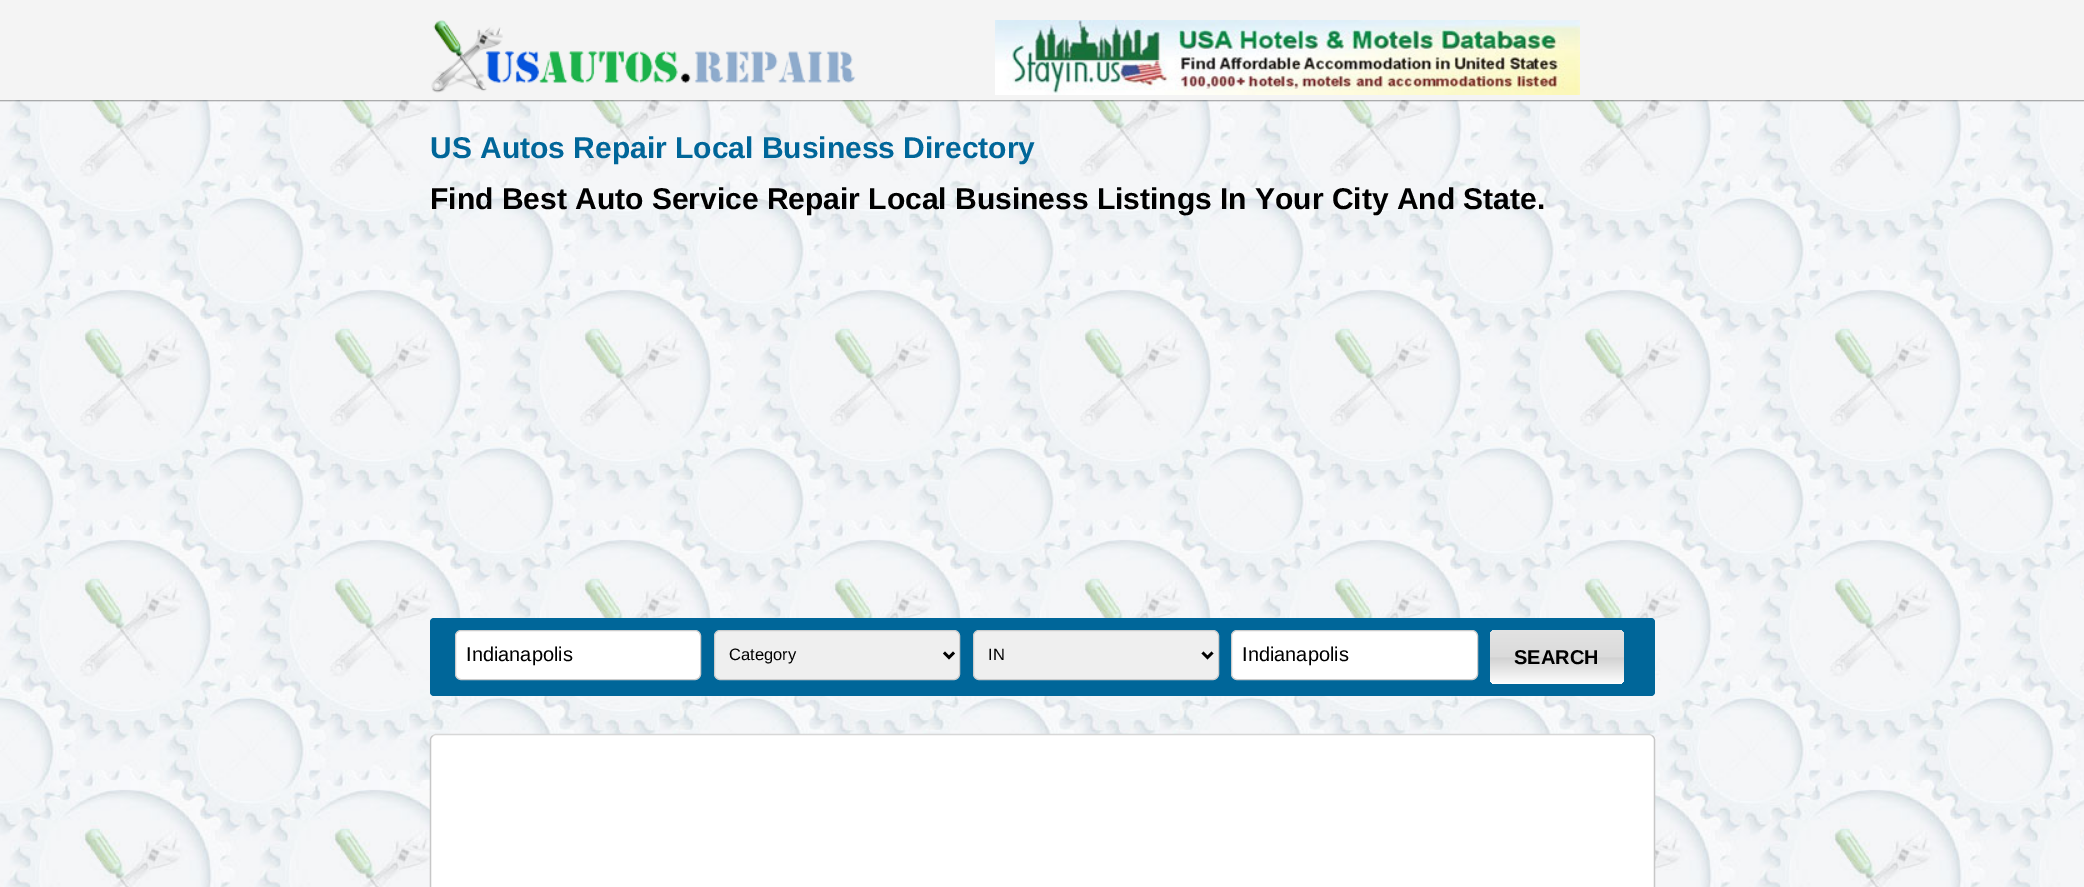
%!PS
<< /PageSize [2084 887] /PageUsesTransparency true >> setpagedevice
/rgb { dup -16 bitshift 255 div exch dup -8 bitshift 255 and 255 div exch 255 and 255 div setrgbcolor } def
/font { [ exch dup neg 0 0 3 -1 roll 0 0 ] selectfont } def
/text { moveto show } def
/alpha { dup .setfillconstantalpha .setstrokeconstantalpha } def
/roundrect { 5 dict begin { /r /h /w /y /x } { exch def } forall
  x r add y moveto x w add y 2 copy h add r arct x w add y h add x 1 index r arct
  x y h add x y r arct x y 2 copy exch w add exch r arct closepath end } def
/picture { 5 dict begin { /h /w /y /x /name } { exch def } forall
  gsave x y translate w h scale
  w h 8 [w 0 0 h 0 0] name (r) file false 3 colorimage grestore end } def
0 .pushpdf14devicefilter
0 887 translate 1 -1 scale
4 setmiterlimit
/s1 { /LiberationSans-Bold 30 font 16#006699 rgb } def
/s2 { /LiberationSans-Bold 30 font 16#000000 rgb } def
/s3 { /LiberationSans-Regular 20 font 16#000000 rgb } def
/s4 { /LiberationSans-Regular 16.5 font 16#000000 rgb } def
/s5 { /LiberationSans-Bold 20 font 16#000000 rgb } def
16#FFFFFF rgb
0 0 2084 887 rectfill
(pic1.raw) 0 100 2084 787 picture
16#F4F4F4 rgb
0 0 2084 100 rectfill
(pic2.raw) 431 20 425 73 picture
(pic3.raw) 995 20 585 75 picture
0.3 alpha
16#000000 rgb
0 100 2084 1 rectfill
0.1 alpha
0 101 2084 1 rectfill
1 alpha
s1
(US Autos Repair Local Business Directory) 430 158 text
s2
(Find Best Auto Service Repair Local Business Listings In Your City And State.) 430 209 text
16#006699 rgb
430 618 1225 78 4 roundrect fill
16#FFFFFF rgb
455.5 630.5 245 49 5.5 roundrect gsave fill grestore
16#CCCCCC rgb
stroke
s3
(Indianapolis) 466 661 text
16#EFEFEF rgb
714.5 630.5 245 49 5.5 roundrect gsave fill grestore
16#CCCCCC rgb
stroke
16#000000 rgb
2.5 setlinewidth
944 652.5 moveto 949 657.5 lineto 954 652.5 lineto stroke
s4
(Category) 729 660 text
16#EFEFEF rgb
973.5 630.5 245 49 5.5 roundrect gsave fill grestore
16#CCCCCC rgb
1 setlinewidth
stroke
16#000000 rgb
2.5 setlinewidth
1202.5 652.5 moveto 1207.5 657.5 lineto 1212.5 652.5 lineto stroke
(IN) 988 660 text
16#FFFFFF rgb
1231.5 630.5 246 49 5.5 roundrect gsave fill grestore
16#CCCCCC rgb
1 setlinewidth
stroke
s3
(Indianapolis) 1242 661 text
gsave 1490 630 134 54 6 roundrect clip newpath
<< /ShadingType 2 /ColorSpace /DeviceRGB /Coords [1557 630 1557 684] /Extend [true true] /Function << /FunctionType 3 /Domain [0 1] /Functions [<< /FunctionType 2 /Domain [0 1] /C0 [0.886 0.886 0.886] /C1 [0.859 0.859 0.859] /N 1 >> << /FunctionType 2 /Domain [0 1] /C0 [0.859 0.859 0.859] /C1 [0.82 0.82 0.82] /N 1 >> << /FunctionType 2 /Domain [0 1] /C0 [0.82 0.82 0.82] /C1 [0.996 0.996 0.996] /N 1 >>] /Bounds [0.5 0.51] /Encode [0 1 0 1 0 1] >> >> shfill grestore
s5
(SEARCH) 1514 664 text
16#FFFFFF rgb
430 734 1225 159 6 roundrect fill
16#D7D7D7 rgb
1.2 setlinewidth
432.5 736 moveto 433.5 735 435 734.5 436 734.5 curveto 1649 734.5 lineto 1650 734.5 1651.5 735 1652.5 736 curveto stroke
16#C7C7C7 rgb
1652.5 736 moveto 1654 737 1654.5 738.5 1654.5 740 curveto 1654.5 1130 lineto 1654.5 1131.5 1654 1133 1652.5 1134 curveto stroke
432.5 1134 moveto 431 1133 430.5 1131.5 430.5 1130 curveto 430.5 740 lineto 430.5 738.5 431 737 432.5 736 curveto stroke
.poppdf14devicefilter showpage
